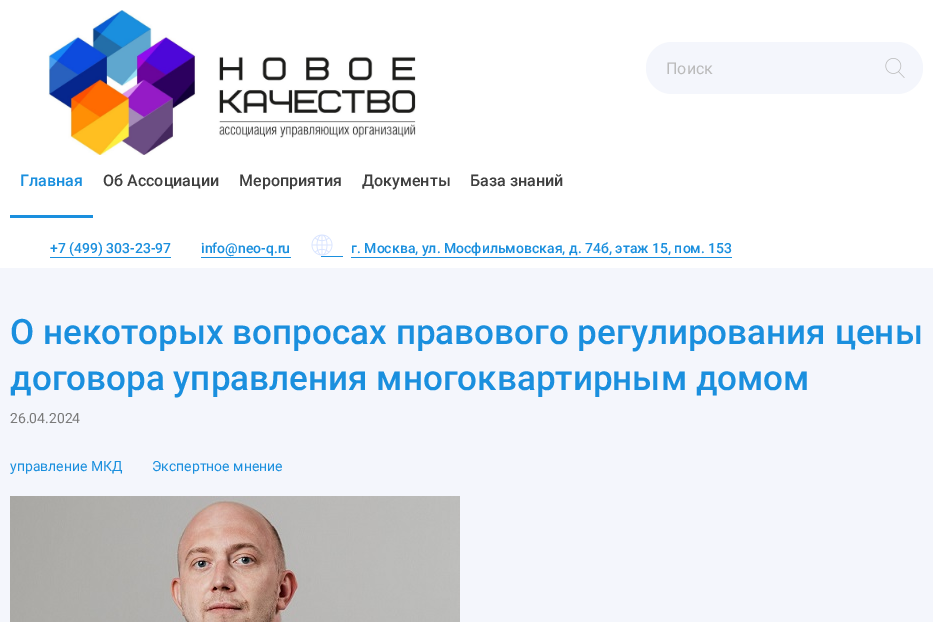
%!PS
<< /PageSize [933 622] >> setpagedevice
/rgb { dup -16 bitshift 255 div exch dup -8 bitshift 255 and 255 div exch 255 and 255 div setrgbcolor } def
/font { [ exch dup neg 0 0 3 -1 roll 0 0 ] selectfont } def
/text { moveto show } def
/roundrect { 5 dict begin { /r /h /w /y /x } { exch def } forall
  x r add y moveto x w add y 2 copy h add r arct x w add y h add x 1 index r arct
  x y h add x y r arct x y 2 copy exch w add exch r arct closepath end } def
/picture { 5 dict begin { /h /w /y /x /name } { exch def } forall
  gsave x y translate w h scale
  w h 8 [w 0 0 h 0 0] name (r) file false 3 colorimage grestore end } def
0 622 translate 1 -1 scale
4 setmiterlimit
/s1 { /Roboto-Regular 16 font 16#BBBBBB rgb } def
/s2 { /Roboto-Medium 16 font 16#1A8FDE rgb } def
/s3 { /Roboto-Medium 16 font 16#3F3F3F rgb } def
/s4 { /Roboto-Medium 14 font 16#1A8FDE rgb } def
/s5 { /Roboto-Medium 35 font 16#1A8FDE rgb } def
/s6 { /Roboto-Regular 14 font 16#7A7A7A rgb } def
/s7 { /Roboto-Regular 14 font 16#1A8FDE rgb } def
16#F4F6FC rgb
0 0 933 622 rectfill
16#FFFFFF rgb
0 0 933 268 rectfill
(pic1.raw) 48 10 368 145 picture
16#F4F6FC rgb
646 42 277 52 26 roundrect fill
s1
(Поиск) 666 74 text
(pic2.raw) 885 58 20 20 picture
16#1A8FDE rgb
10 215 83 3 rectfill
s2
(Главная) 20 186 text
s3
(Об Ассоциации) 103 186 text
(Мероприятия) 239 186 text
(Документы) 362 186 text
(База знаний) 470 186 text
16#1A8FDE rgb
50 257 121 1 rectfill
s4
(+7 \(499\) 303-23-97) 50 253 text
201 257 90 1 rectfill
(info@neo-q.ru) 201 253 text
(pic3.raw) 311 234 22 22 picture
(г. Москва, ул. Мосфильмовская, д. 74б, этаж 15, пом. 153) 351 253 text
321 256 22 1 rectfill
351 257 381 1 rectfill
s5
(О некоторых вопросах правового регулирования цены) 10 344 text
(договора управления многоквартирным домом) 10 390 text
s6
(26.04.2024) 10 423 text
s7
(управление МКД) 10 471 text
(Экспертное мнение) 152 471 text
(pic4.raw) 10 496 450 126 picture
showpage
